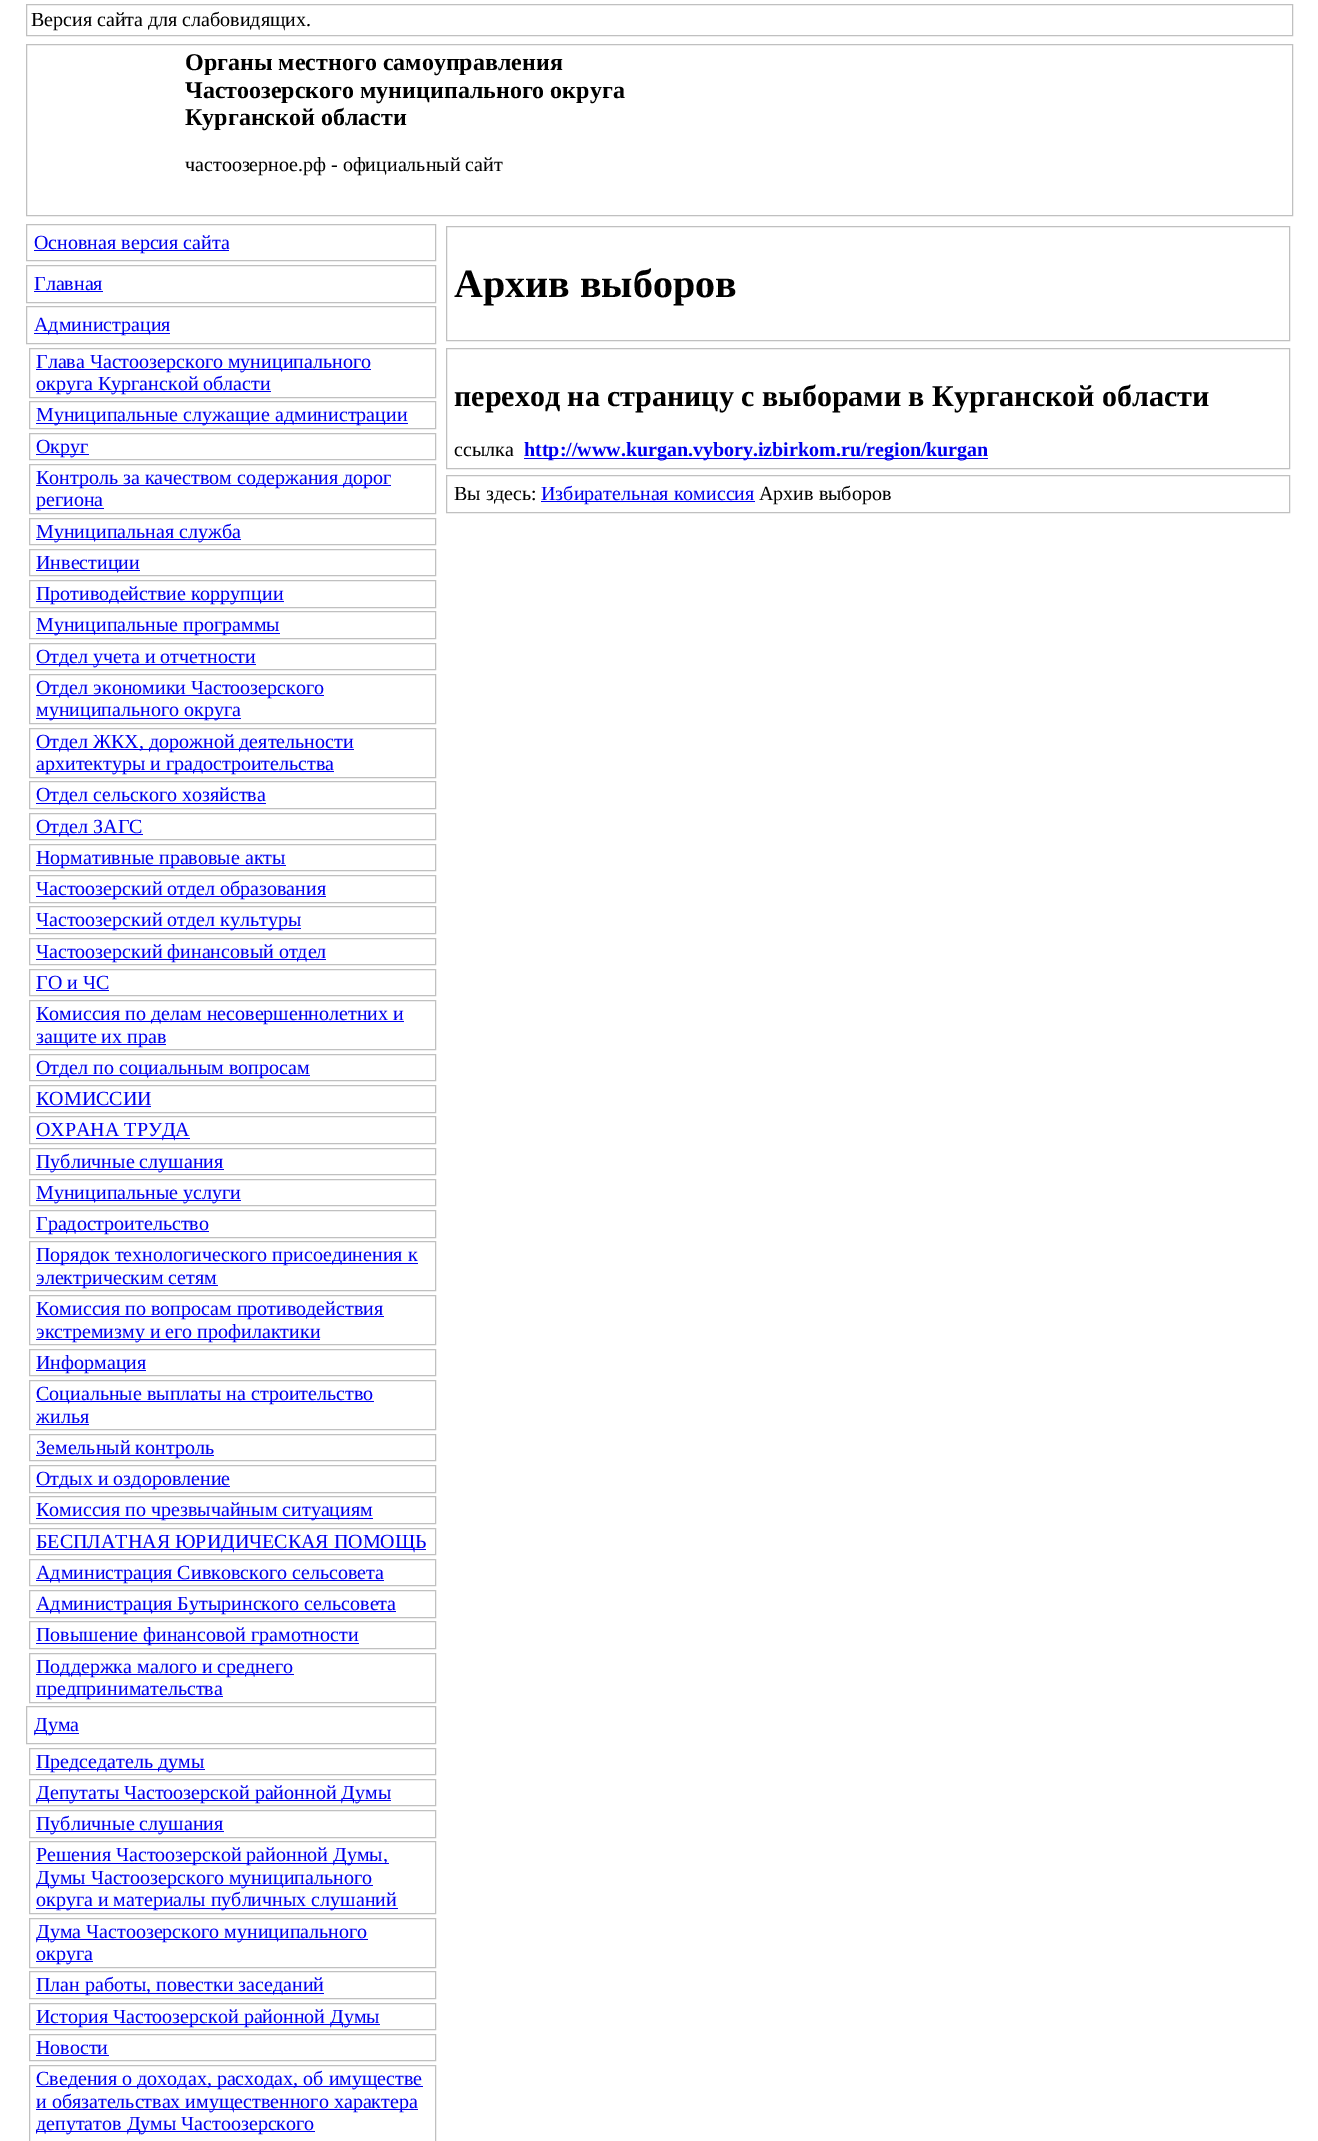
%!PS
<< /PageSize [1318 2141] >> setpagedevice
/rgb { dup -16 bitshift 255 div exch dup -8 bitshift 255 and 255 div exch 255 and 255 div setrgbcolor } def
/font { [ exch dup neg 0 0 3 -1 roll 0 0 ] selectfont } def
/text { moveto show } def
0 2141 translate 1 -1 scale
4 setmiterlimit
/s1 { /LiberationSerif-Regular 20 font 16#000000 rgb } def
/s2 { /LiberationSerif-Bold 24 font 16#000000 rgb } def
/s3 { /LiberationSerif-Regular 20 font 16#0000EE rgb } def
/s4 { /LiberationSerif-Bold 40 font 16#000000 rgb } def
/s5 { /LiberationSerif-Bold 30 font 16#000000 rgb } def
/s6 { /LiberationSerif-Bold 20 font 16#0000EE rgb } def
16#FFFFFF rgb
0 0 1318 2141 rectfill
16#C0C0C0 rgb
26.5 4.5 1266 31 rectstroke
s1
(Версия сайта для слабовидящих.) 31 26 text
16#C0C0C0 rgb
26.5 44.5 1266 171 rectstroke
s2
(Органы местного самоуправления) 185 70 text
(Частоозерского муниципального округа) 185 98 text
(Курганской области) 185 125 text
s1
(частоозерное.рф - официальный сайт) 185 171 text
16#C0C0C0 rgb
26.5 224.5 409 36 rectstroke
16#0000EE rgb
34 250 195 1 rectfill
(Основная версия сайта) 34 249 text
16#C0C0C0 rgb
26.5 265.5 409 37 rectstroke
s3
(Главная) 34 290 text
34 291 69 1 rectfill
16#C0C0C0 rgb
26.5 306.5 409 37 rectstroke
16#0000EE rgb
34 333 136 1 rectfill
(Администрация) 34 331 text
16#C0C0C0 rgb
29.5 348.5 406 49 rectstroke
16#0000EE rgb
36 369 335 1 rectfill
(Глава Частоозерского муниципального) 36 368 text
36 391 235 1 rectfill
(округа Курганской области) 36 390 text
16#C0C0C0 rgb
29.5 401.5 406 27 rectstroke
16#0000EE rgb
36 423 372 1 rectfill
(Муниципальные служащие администрации) 36 421 text
16#C0C0C0 rgb
29.5 433.5 406 26 rectstroke
16#0000EE rgb
36 454 53 1 rectfill
(Округ) 36 453 text
16#C0C0C0 rgb
29.5 464.5 406 49 rectstroke
16#0000EE rgb
36 485 355 1 rectfill
(Контроль за качеством содержания дорог) 36 484 text
36 508 68 1 rectfill
(региона) 36 506 text
16#C0C0C0 rgb
29.5 518.5 406 26 rectstroke
16#0000EE rgb
36 539 205 1 rectfill
(Муниципальная служба) 36 538 text
16#C0C0C0 rgb
29.5 549.5 406 26 rectstroke
16#0000EE rgb
36 570 104 1 rectfill
(Инвестиции) 36 569 text
16#C0C0C0 rgb
29.5 580.5 406 27 rectstroke
16#0000EE rgb
36 601 248 1 rectfill
(Противодействие коррупции) 36 600 text
16#C0C0C0 rgb
29.5 611.5 406 27 rectstroke
16#0000EE rgb
36 633 244 1 rectfill
(Муниципальные программы) 36 631 text
16#C0C0C0 rgb
29.5 643.5 406 26 rectstroke
16#0000EE rgb
36 664 220 1 rectfill
(Отдел учета и отчетности) 36 663 text
16#C0C0C0 rgb
29.5 674.5 406 49 rectstroke
16#0000EE rgb
36 695 288 1 rectfill
(Отдел экономики Частоозерского) 36 694 text
36 718 205 1 rectfill
(муниципального округа) 36 716 text
16#C0C0C0 rgb
29.5 728.5 406 49 rectstroke
16#0000EE rgb
36 749 318 1 rectfill
(Отдел ЖКХ, дорожной деятельности) 36 748 text
36 771 298 1 rectfill
(архитектуры и градостроительства) 36 770 text
16#C0C0C0 rgb
29.5 781.5 406 27 rectstroke
16#0000EE rgb
36 803 230 1 rectfill
(Отдел сельского хозяйства) 36 801 text
16#C0C0C0 rgb
29.5 813.5 406 26 rectstroke
16#0000EE rgb
36 834 107 1 rectfill
(Отдел ЗАГС) 36 833 text
16#C0C0C0 rgb
29.5 844.5 406 26 rectstroke
16#0000EE rgb
36 865 250 1 rectfill
(Нормативные правовые акты) 36 864 text
16#C0C0C0 rgb
29.5 875.5 406 27 rectstroke
16#0000EE rgb
36 896 290 1 rectfill
(Частоозерский отдел образования) 36 895 text
16#C0C0C0 rgb
29.5 906.5 406 27 rectstroke
16#0000EE rgb
36 928 265 1 rectfill
(Частоозерский отдел культуры) 36 926 text
16#C0C0C0 rgb
29.5 938.5 406 26 rectstroke
16#0000EE rgb
36 959 290 1 rectfill
(Частоозерский финансовый отдел) 36 958 text
16#C0C0C0 rgb
29.5 969.5 406 26 rectstroke
s3
(ГО и ЧС) 36 989 text
36 990 73 1 rectfill
16#C0C0C0 rgb
29.5 1000.5 406 49 rectstroke
16#0000EE rgb
36 1021 368 1 rectfill
(Комиссия по делам несовершеннолетних и) 36 1020 text
36 1044 130 1 rectfill
(защите их прав) 36 1043 text
16#C0C0C0 rgb
29.5 1054.5 406 26 rectstroke
16#0000EE rgb
36 1075 274 1 rectfill
(Отдел по социальным вопросам) 36 1074 text
16#C0C0C0 rgb
29.5 1085.5 406 27 rectstroke
s3
(КОМИССИИ) 36 1105 text
36 1106 115 1 rectfill
16#C0C0C0 rgb
29.5 1116.5 406 27 rectstroke
16#0000EE rgb
36 1138 154 1 rectfill
(ОХРАНА ТРУДА) 36 1136 text
16#C0C0C0 rgb
29.5 1148.5 406 26 rectstroke
16#0000EE rgb
36 1169 188 1 rectfill
(Публичные слушания) 36 1168 text
16#C0C0C0 rgb
29.5 1179.5 406 26 rectstroke
16#0000EE rgb
36 1200 205 1 rectfill
(Муниципальные услуги) 36 1199 text
16#C0C0C0 rgb
29.5 1210.5 406 27 rectstroke
16#0000EE rgb
36 1231 173 1 rectfill
(Градостроительство) 36 1230 text
16#C0C0C0 rgb
29.5 1241.5 406 49 rectstroke
16#0000EE rgb
36 1263 382 1 rectfill
(Порядок технологического присоединения к) 36 1261 text
36 1285 182 1 rectfill
(электрическим сетям) 36 1284 text
16#C0C0C0 rgb
29.5 1295.5 406 49 rectstroke
16#0000EE rgb
36 1316 348 1 rectfill
(Комиссия по вопросам противодействия) 36 1315 text
36 1339 284 1 rectfill
(экстремизму и его профилактики) 36 1338 text
16#C0C0C0 rgb
29.5 1349.5 406 26 rectstroke
16#0000EE rgb
36 1370 110 1 rectfill
(Информация) 36 1369 text
16#C0C0C0 rgb
29.5 1380.5 406 49 rectstroke
16#0000EE rgb
36 1401 338 1 rectfill
(Социальные выплаты на строительство) 36 1400 text
(жилья) 36 1423 text
36 1424 53 1 rectfill
16#C0C0C0 rgb
29.5 1434.5 406 26 rectstroke
16#0000EE rgb
36 1455 178 1 rectfill
(Земельный контроль) 36 1454 text
16#C0C0C0 rgb
29.5 1465.5 406 27 rectstroke
16#0000EE rgb
36 1486 194 1 rectfill
(Отдых и оздоровление) 36 1485 text
16#C0C0C0 rgb
29.5 1496.5 406 27 rectstroke
16#0000EE rgb
36 1518 337 1 rectfill
(Комиссия по чрезвычайным ситуациям) 36 1516 text
16#C0C0C0 rgb
29.5 1528.5 406 26 rectstroke
16#0000EE rgb
36 1549 390 1 rectfill
(БЕСПЛАТНАЯ ЮРИДИЧЕСКАЯ ПОМОЩЬ) 36 1548 text
16#C0C0C0 rgb
29.5 1559.5 406 26 rectstroke
16#0000EE rgb
36 1580 348 1 rectfill
(Администрация Сивковского сельсовета) 36 1579 text
16#C0C0C0 rgb
29.5 1590.5 406 27 rectstroke
16#0000EE rgb
36 1611 360 1 rectfill
(Администрация Бутыринского сельсовета) 36 1610 text
16#C0C0C0 rgb
29.5 1621.5 406 27 rectstroke
16#0000EE rgb
36 1643 323 1 rectfill
(Повышение финансовой грамотности) 36 1641 text
16#C0C0C0 rgb
29.5 1653.5 406 49 rectstroke
16#0000EE rgb
36 1674 258 1 rectfill
(Поддержка малого и среднего) 36 1673 text
36 1696 187 1 rectfill
(предпринимательства) 36 1695 text
16#C0C0C0 rgb
26.5 1706.5 409 37 rectstroke
16#0000EE rgb
34 1733 45 1 rectfill
(Дума) 34 1731 text
16#C0C0C0 rgb
29.5 1748.5 406 26 rectstroke
16#0000EE rgb
36 1769 169 1 rectfill
(Председатель думы) 36 1768 text
16#C0C0C0 rgb
29.5 1779.5 406 26 rectstroke
16#0000EE rgb
36 1800 355 1 rectfill
(Депутаты Частоозерской районной Думы) 36 1799 text
16#C0C0C0 rgb
29.5 1810.5 406 27 rectstroke
16#0000EE rgb
36 1831 188 1 rectfill
(Публичные слушания) 36 1830 text
16#C0C0C0 rgb
29.5 1841.5 406 72 rectstroke
16#0000EE rgb
36 1863 353 1 rectfill
(Решения Частоозерской районной Думы,) 36 1861 text
36 1885 337 1 rectfill
(Думы Частоозерского муниципального) 36 1884 text
36 1908 362 1 rectfill
(округа и материалы публичных слушаний) 36 1906 text
16#C0C0C0 rgb
29.5 1918.5 406 49 rectstroke
16#0000EE rgb
36 1939 332 1 rectfill
(Дума Частоозерского муниципального) 36 1938 text
36 1961 57 1 rectfill
(округа) 36 1960 text
16#C0C0C0 rgb
29.5 1971.5 406 27 rectstroke
16#0000EE rgb
36 1993 288 1 rectfill
(План работы, повестки заседаний) 36 1991 text
16#C0C0C0 rgb
29.5 2003.5 406 26 rectstroke
16#0000EE rgb
36 2024 344 1 rectfill
(История Частоозерской районной Думы) 36 2023 text
16#C0C0C0 rgb
29.5 2034.5 406 26 rectstroke
s3
(Новости) 36 2054 text
36 2055 73 1 rectfill
16#C0C0C0 rgb
29.5 2065.5 406 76 rectstroke
16#0000EE rgb
36 2086 387 1 rectfill
(Сведения о доходах, расходах, об имуществе) 36 2085 text
36 2109 382 1 rectfill
(и обязательствах имущественного характера) 36 2108 text
36 2131 279 1 rectfill
(депутатов Думы Частоозерского) 36 2130 text
16#C0C0C0 rgb
446.5 226.5 843 114 rectstroke
s4
(Архив выборов) 454 297 text
16#C0C0C0 rgb
446.5 348.5 843 120 rectstroke
s5
(переход на страницу с выборами в Курганской области) 454 406 text
s1
(ссылка) 454 456 text
16#0000EE rgb
524 458 464 1 rectfill
s6
(http://www.kurgan.vybory.izbirkom.ru/region/kurgan) 524 456 text
16#C0C0C0 rgb
446.5 475.5 843 37 rectstroke
s1
(Вы здесь:) 454 500 text
16#0000EE rgb
541 501 214 1 rectfill
(Избирательная комиссия) 541 500 text
s1
(Архив выборов) 759 500 text
showpage
